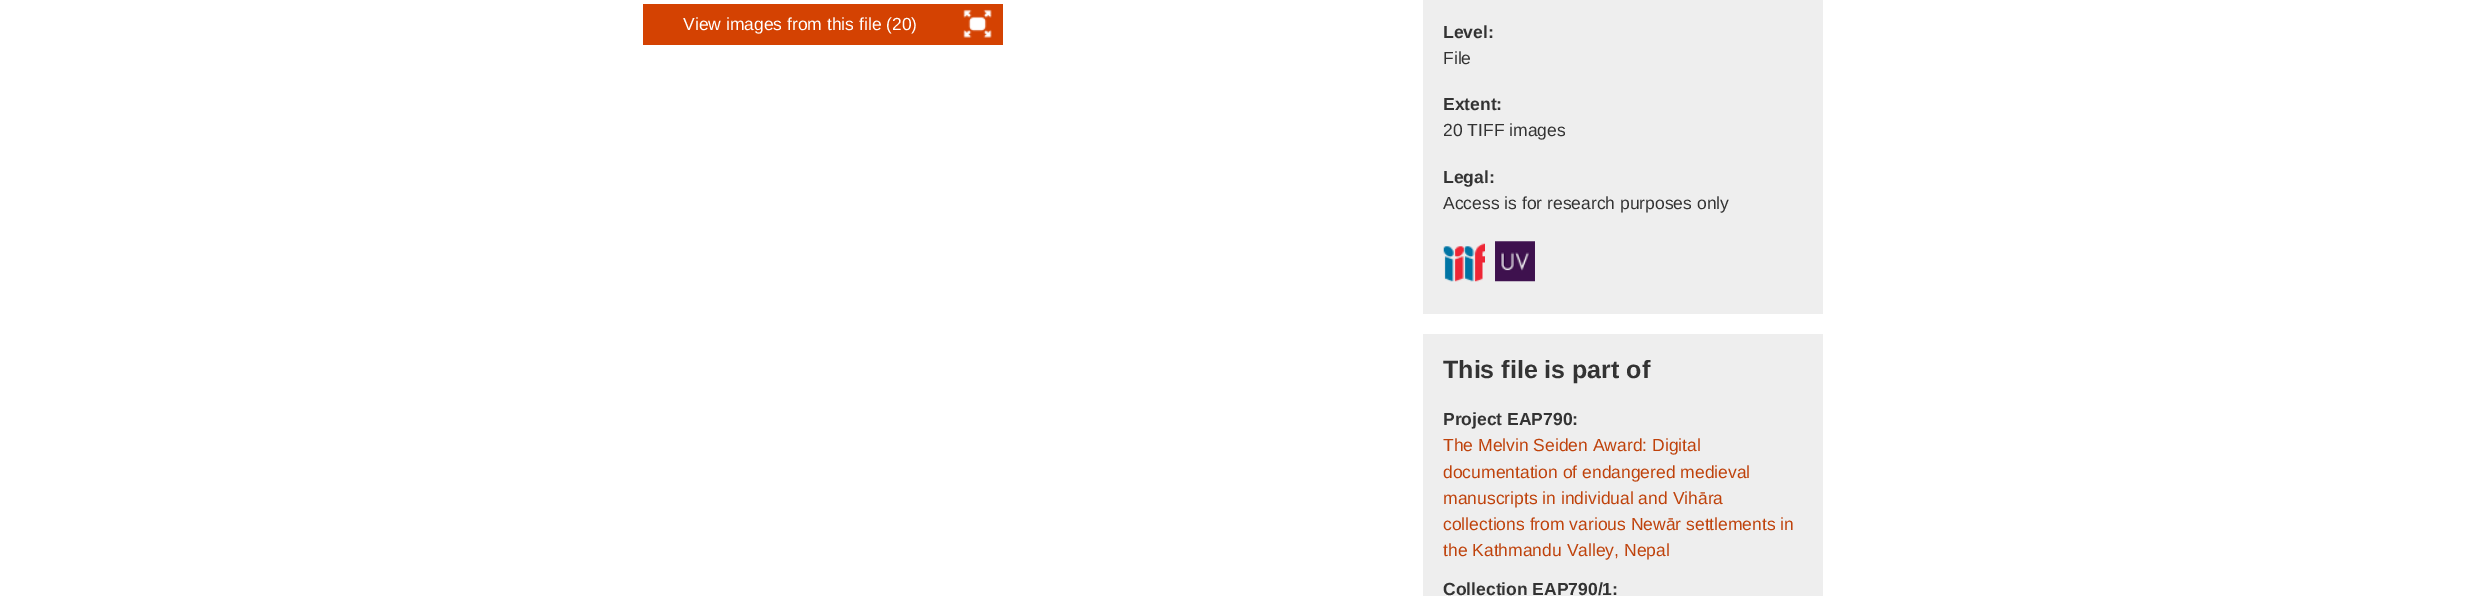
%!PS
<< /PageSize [2465 596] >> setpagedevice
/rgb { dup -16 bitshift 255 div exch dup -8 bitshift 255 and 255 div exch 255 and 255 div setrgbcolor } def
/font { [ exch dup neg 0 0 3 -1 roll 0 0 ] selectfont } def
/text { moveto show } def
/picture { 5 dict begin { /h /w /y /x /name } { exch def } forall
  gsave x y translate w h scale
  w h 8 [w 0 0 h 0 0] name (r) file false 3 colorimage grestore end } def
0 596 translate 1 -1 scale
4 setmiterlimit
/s1 { /LiberationSans-Regular 17.5 font 16#FFFFFF rgb } def
/s2 { /LiberationSans-Bold 17.5 font 16#333333 rgb } def
/s3 { /LiberationSans-Regular 17.5 font 16#333333 rgb } def
/s4 { /LiberationSans-Bold 25 font 16#333333 rgb } def
/s5 { /LiberationSans-Regular 17.5 font 16#BF420B rgb } def
16#FFFFFF rgb
0 0 2465 596 rectfill
16#D44202 rgb
643 4 360 41 rectfill
s1
(View images from this file \(20\)) 683 30 text
(pic1.raw) 963 9 29 29 picture
16#EEEEEE rgb
1423 0 400 314 rectfill
s2
(Level:) 1443 38 text
s3
(File) 1443 64 text
s2
(Extent:) 1443 110 text
s3
(20 TIFF images) 1443 136 text
s2
(Legal:) 1443 183 text
s3
(Access is for research purposes only) 1443 209 text
(pic2.raw) 1443 243 42 39 picture
(pic3.raw) 1495 241 40 41 picture
16#EEEEEE rgb
1423 334 400 262 rectfill
s4
(This file is part of) 1443 378 text
s2
(Project EAP790:) 1443 425 text
s5
(The Melvin Seiden Award: Digital) 1443 451 text
(documentation of endangered medieval) 1443 478 text
(manuscripts in individual and Vihāra) 1443 504 text
(collections from various Newār settlements in) 1443 530 text
(the Kathmandu Valley, Nepal) 1443 556 text
s2
(Collection EAP790/1:) 1443 595 text
showpage
